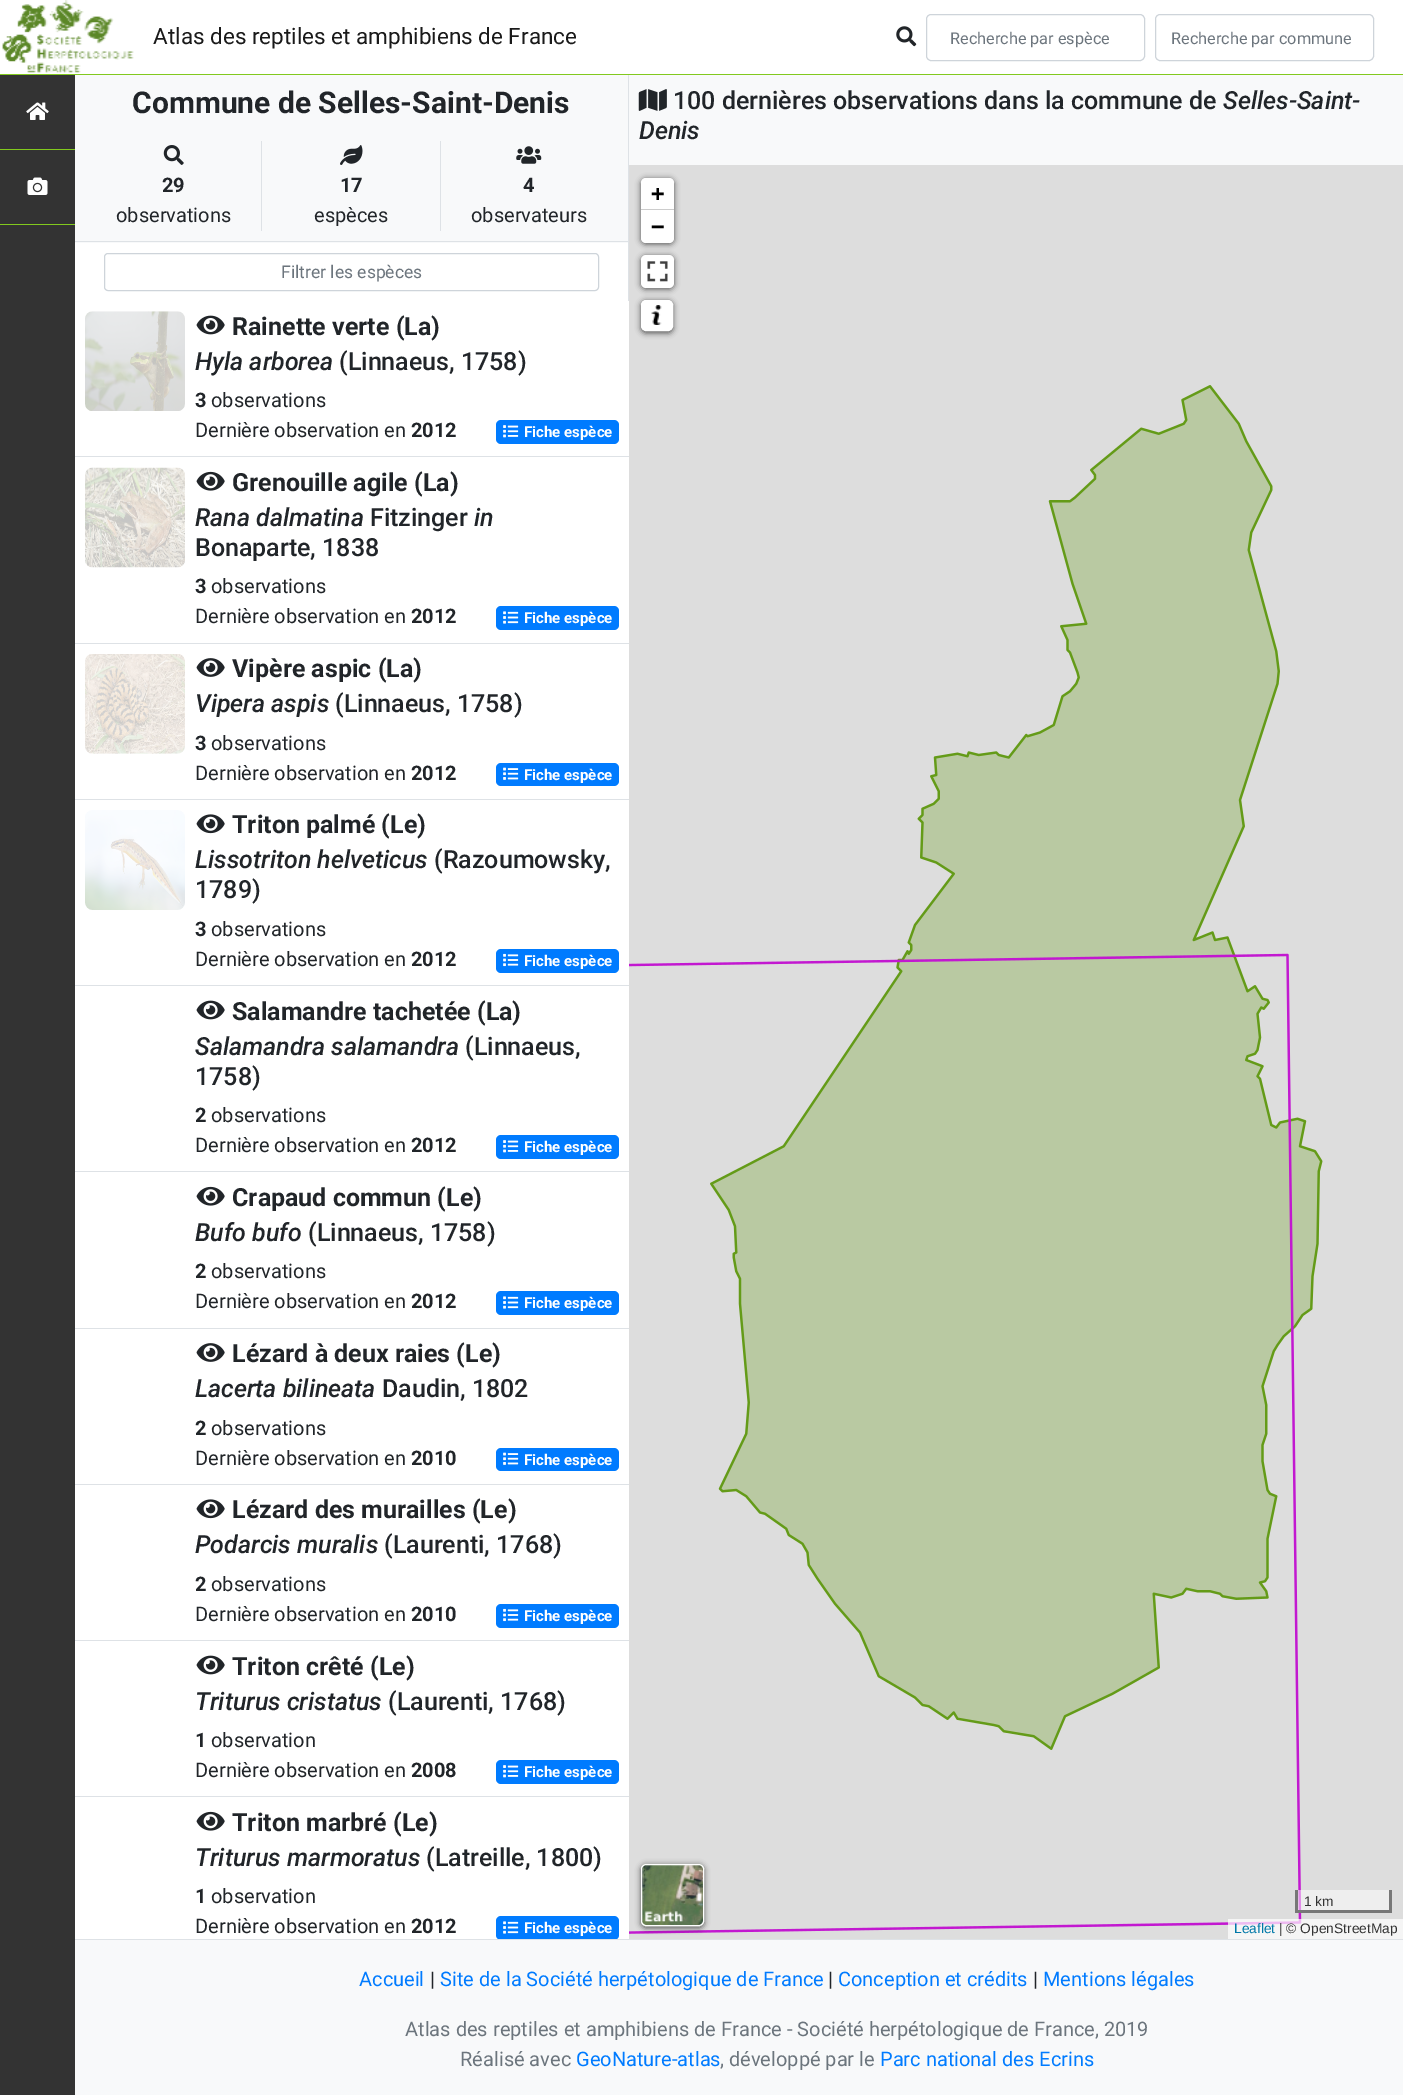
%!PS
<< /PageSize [1403 2095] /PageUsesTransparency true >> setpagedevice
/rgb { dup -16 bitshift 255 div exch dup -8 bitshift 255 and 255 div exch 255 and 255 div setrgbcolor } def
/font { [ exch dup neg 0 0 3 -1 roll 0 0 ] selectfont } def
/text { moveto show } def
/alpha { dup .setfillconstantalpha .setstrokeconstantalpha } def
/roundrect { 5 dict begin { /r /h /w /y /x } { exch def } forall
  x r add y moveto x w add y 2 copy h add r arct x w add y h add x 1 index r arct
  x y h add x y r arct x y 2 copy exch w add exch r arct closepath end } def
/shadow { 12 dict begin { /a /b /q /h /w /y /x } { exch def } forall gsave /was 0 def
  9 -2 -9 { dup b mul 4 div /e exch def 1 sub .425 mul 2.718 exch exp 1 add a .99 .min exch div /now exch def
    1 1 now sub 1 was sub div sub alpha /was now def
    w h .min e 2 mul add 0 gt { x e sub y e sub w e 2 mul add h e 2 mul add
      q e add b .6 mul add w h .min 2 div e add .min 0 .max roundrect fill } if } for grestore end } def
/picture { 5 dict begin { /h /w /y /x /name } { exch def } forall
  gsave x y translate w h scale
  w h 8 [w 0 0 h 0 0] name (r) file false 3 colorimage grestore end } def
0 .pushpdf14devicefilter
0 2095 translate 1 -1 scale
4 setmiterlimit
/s1 { /Roboto-Regular 22.5 font 16#1A1A1A rgb } def
/s2 { /Roboto-Regular 16.25 font 16#6C757D rgb } def
/s3 { /Roboto-Bold 30 font 16#212529 rgb } def
/s4 { /Roboto-Bold 20 font 16#212529 rgb } def
/s5 { /Roboto-Regular 20 font 16#212529 rgb } def
/s6 { /Roboto-Regular 17.5 font 16#6C757D rgb } def
/s7 { /Roboto-Bold 25 font 16#212529 rgb } def
/s8 { /Roboto-MediumItalic 25 font 16#212529 rgb } def
/s9 { /Roboto-Medium 25 font 16#212529 rgb } def
/s10 { /Roboto-Bold 15 font 16#FFFFFF rgb } def
/s11 { /DejaVuSansMono-Bold 22.5 font 16#000000 rgb } def
/s12 { /LiberationSans-Regular 13.75 font 16#333333 rgb } def
/s13 { /LiberationSans-Regular 13.75 font 16#0078A8 rgb } def
/s14 { /Roboto-Regular 20 font 16#007BFF rgb } def
/s15 { /Roboto-Regular 20 font 16#6C757D rgb } def
16#DEE2E6 rgb
0 0 1403 2095 rectfill
16#FFFFFF rgb
0 0 1403 74 rectfill
16#82C91E rgb
0 74 1403 1 rectfill
(pic1.raw) 2 0 132 73 picture
s1
(Atlas des reptiles et amphibiens de France) 153 44 text
(pic2.raw) 896 26 21 21 picture
16#CED4DA rgb
926.5 14.5 218 46 4.5 roundrect stroke
s2
(Recherche par espèce) 950 44 text
16#CED4DA rgb
1155.5 14.5 218 46 4.5 roundrect stroke
s2
(Recherche par commune) 1171 44 text
16#333333 rgb
0 75 75 2020 rectfill
16#82C91E rgb
0 149 75 1 rectfill
(pic3.raw) 26 102 23 18 picture
0 224 75 1 rectfill
(pic4.raw) 27 177 21 18 picture
16#F8F9FA rgb
75 75 553 168 rectfill
16#DEE2E6 rgb
75 241 554 1 rectfill
s3
(Commune de Selles-Saint-Denis) 132 113 text
16#DEE2E6 rgb
261 141 1 90 rectfill
(pic5.raw) 163 145 21 20 picture
s4
(29) 162 192 text
s5
(observations) 116 222 text
16#DEE2E6 rgb
440 141 1 90 rectfill
(pic6.raw) 340 145 23 20 picture
s4
(17) 340 192 text
s5
(espèces) 314 222 text
(pic7.raw) 516 146 26 18 picture
s4
(4) 523 192 text
s5
(observateurs) 471 222 text
16#FFFFFF rgb
75 243 553 58 rectfill
16#CED4DA rgb
104.5 253.5 494 37 3.5 roundrect stroke
s6
(Filtrer les espèces) 281 278 text
16#FFFFFF rgb
75 301 554 1638 rectfill
16#DEE2E6 rgb
75 456 554 1 rectfill
(pic8.raw) 85 311 100 100 picture
(pic9.raw) 196 315 29 20 picture
s7
(Rainette verte \(La\)) 232 335 text
s8
(Hyla arborea) 195 370 text
s9
(\(Linnaeus, 1758\)) 339 370 text
s4
(3) 195 407 text
s5
(observations) 211 407 text
(Dernière observation en) 195 437 text
s4
(2012) 411 437 text
16#007BFF rgb
496 420 123 24 5 roundrect fill
(pic10.raw) 503 425 16 13 picture
s10
(Fiche espèce) 524 437 text
16#DEE2E6 rgb
75 643 554 1 rectfill
(pic11.raw) 85 467 100 101 picture
(pic12.raw) 196 471 29 20 picture
s7
(Grenouille agile \(La\)) 232 491 text
s8
(Rana dalmatina) 195 526 text
s9
(Fitzinger) 370 526 text
s8
(in) 474 526 text
s9
(Bonaparte, 1838) 195 556 text
s4
(3) 195 593 text
s5
(observations) 211 593 text
(Dernière observation en) 195 623 text
s4
(2012) 411 623 text
16#007BFF rgb
496 606 123 24 5 roundrect fill
(pic13.raw) 503 611 16 13 picture
s10
(Fiche espèce) 524 623 text
16#DEE2E6 rgb
75 799 554 1 rectfill
(pic14.raw) 85 654 100 100 picture
(pic15.raw) 196 658 29 19 picture
s7
(Vipère aspic \(La\)) 232 677 text
s8
(Vipera aspis) 195 712 text
s9
(\(Linnaeus, 1758\)) 335 712 text
s4
(3) 195 750 text
s5
(observations) 211 750 text
(Dernière observation en) 195 780 text
s4
(2012) 411 780 text
16#007BFF rgb
496 763 123 23 5 roundrect fill
(pic16.raw) 503 767 16 13 picture
s10
(Fiche espèce) 524 780 text
16#DEE2E6 rgb
75 985 554 1 rectfill
(pic17.raw) 85 810 100 100 picture
(pic18.raw) 196 814 29 20 picture
s7
(Triton palmé \(Le\)) 232 833 text
s8
(Lissotriton helveticus) 195 868 text
s9
(\(Razoumowsky,) 434 868 text
(1789\)) 195 898 text
s4
(3) 195 936 text
s5
(observations) 211 936 text
(Dernière observation en) 195 966 text
s4
(2012) 411 966 text
16#007BFF rgb
496 949 123 24 5 roundrect fill
(pic19.raw) 503 953 16 14 picture
s10
(Fiche espèce) 524 966 text
16#DEE2E6 rgb
75 1171 554 1 rectfill
(pic9.raw) 196 1000 29 20 picture
s7
(Salamandre tachetée \(La\)) 232 1020 text
s8
(Salamandra salamandra) 195 1055 text
s9
(\(Linnaeus,) 465 1055 text
(1758\)) 195 1085 text
s4
(2) 195 1122 text
s5
(observations) 211 1122 text
(Dernière observation en) 195 1152 text
s4
(2012) 411 1152 text
16#007BFF rgb
496 1135 123 24 5 roundrect fill
(pic10.raw) 503 1140 16 13 picture
s10
(Fiche espèce) 524 1152 text
16#DEE2E6 rgb
75 1328 554 1 rectfill
(pic12.raw) 196 1186 29 20 picture
s7
(Crapaud commun \(Le\)) 232 1206 text
s8
(Bufo bufo) 195 1241 text
s9
(\(Linnaeus, 1758\)) 308 1241 text
s4
(2) 195 1278 text
s5
(observations) 211 1278 text
(Dernière observation en) 195 1308 text
s4
(2012) 411 1308 text
16#007BFF rgb
496 1291 123 24 5 roundrect fill
(pic13.raw) 503 1296 16 13 picture
s10
(Fiche espèce) 524 1308 text
16#DEE2E6 rgb
75 1484 554 1 rectfill
(pic15.raw) 196 1343 29 19 picture
s7
(Lézard à deux raies \(Le\)) 232 1362 text
s8
(Lacerta bilineata) 195 1397 text
s9
(Daudin, 1802) 382 1397 text
s4
(2) 195 1435 text
s5
(observations) 211 1435 text
(Dernière observation en) 195 1465 text
s4
(2010) 411 1465 text
16#007BFF rgb
496 1448 123 23 5 roundrect fill
(pic16.raw) 503 1452 16 13 picture
s10
(Fiche espèce) 524 1465 text
16#DEE2E6 rgb
75 1640 554 1 rectfill
(pic18.raw) 196 1499 29 20 picture
s7
(Lézard des murailles \(Le\)) 232 1518 text
s8
(Podarcis muralis) 195 1553 text
s9
(\(Laurenti, 1768\)) 384 1553 text
s4
(2) 195 1591 text
s5
(observations) 211 1591 text
(Dernière observation en) 195 1621 text
s4
(2010) 411 1621 text
16#007BFF rgb
496 1604 123 24 5 roundrect fill
(pic19.raw) 503 1608 16 14 picture
s10
(Fiche espèce) 524 1621 text
16#DEE2E6 rgb
75 1796 554 1 rectfill
(pic9.raw) 196 1655 29 20 picture
s7
(Triton crêté \(Le\)) 232 1675 text
s8
(Triturus cristatus) 195 1710 text
s9
(\(Laurenti, 1768\)) 388 1710 text
s4
(1) 195 1747 text
s5
(observation) 211 1747 text
(Dernière observation en) 195 1777 text
s4
(2008) 411 1777 text
16#007BFF rgb
496 1760 123 24 5 roundrect fill
(pic10.raw) 503 1765 16 13 picture
s10
(Fiche espèce) 524 1777 text
(pic12.raw) 196 1811 29 20 picture
s7
(Triton marbré \(Le\)) 232 1831 text
s8
(Triturus marmoratus) 195 1866 text
s9
(\(Latreille, 1800\)) 426 1866 text
s4
(1) 195 1903 text
s5
(observation) 211 1903 text
(Dernière observation en) 195 1933 text
s4
(2012) 411 1933 text
gsave
75 301 554 1638 rectclip
16#007BFF rgb
496 1916 123 24 5 roundrect fill
grestore
(pic13.raw) 503 1921 16 13 picture
s10
(Fiche espèce) 524 1933 text
16#F8F9FA rgb
629 75 774 90 rectfill
(pic20.raw) 638 89 29 22 picture
s9
(100 dernières observations dans la commune de) 673 109 text
s8
(Selles-Saint-) 1223 109 text
(Denis) 639 139 text
16#DDDDDD rgb
629 165 774 1774 rectfill
16#000000 rgb
641 179 33 65 5 3 0.65 shadow
16#FFFFFF rgb
646 178 moveto 669 178 lineto 672 178 674 180 674 183 curveto 674 210 lineto 641 210 lineto 641 183 lineto 641 180 643 178 646 178 curveto closepath fill
16#CCCCCC rgb
641 209 33 1 rectfill
s11
(+) 651 201 text
16#FFFFFF rgb
641 210 moveto 674 210 lineto 674 238 lineto 674 241 672 243 669 243 curveto 646 243 lineto 643 243 641 241 641 238 curveto closepath fill
s11
(−) 651 234 text
641 256 33 33 5 3 0.65 shadow
16#FFFFFF rgb
641 255 33 33 5 roundrect fill
(pic21.raw) 647 261 21 21 picture
16#000000 rgb
641 301 32 32 5 3 0.65 shadow
16#FFFFFF rgb
641.5 300.5 31 30 4.5 roundrect gsave fill grestore
stroke
(pic22.raw) 651 305 11 20 picture
(pic24.raw) 629 385 694 1549 picture
gsave
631 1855 moveto 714 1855 lineto 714 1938 lineto 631 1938 lineto closepath 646 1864 moveto 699 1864 lineto 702 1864 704 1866 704 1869 curveto 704 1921 lineto 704 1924 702 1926 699 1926 curveto 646 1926 lineto 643 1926 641 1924 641 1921 curveto 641 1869 lineto 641 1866 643 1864 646 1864 curveto closepath eoclip newpath
16#000000 rgb
641 1865 63 63 5 3 0.65 shadow
grestore
(pic23.raw) 641 1863 63 64 picture
641.5 1864.5 62 61 4.5 roundrect stroke
0.5 alpha
1298 1890 91 20 rectfill
1 alpha
16#777777 rgb
1389 1890 3 23 rectfill
1295 1910 96 3 rectfill
1295 1890 3 23 rectfill
s12
(1 km) 1304 1906 text
0.7 alpha
16#FFFFFF rgb
1228 1919 175 20 rectfill
1 alpha
s13
(Leaflet) 1234 1933 text
s12
(| © OpenStreetMap) 1279 1933 text
16#F8F9FA rgb
75 1940 1328 155 rectfill
s14
(Accueil) 359 1986 text
s5
(|) 430 1986 text
s14
(Site de la Société herpétologique de France) 440 1986 text
s5
(|) 828 1986 text
s14
(Conception et crédits) 838 1986 text
s5
(|) 1033 1986 text
s14
(Mentions légales) 1043 1986 text
s15
(Atlas des reptiles et amphibiens de France - Société herpétologique de France, 2019) 405 2036 text
(Réalisé avec) 460 2066 text
s14
(GeoNature-atlas) 576 2066 text
s15
(, développé par le) 720 2066 text
s14
(Parc national des Ecrins) 880 2066 text
.poppdf14devicefilter showpage
